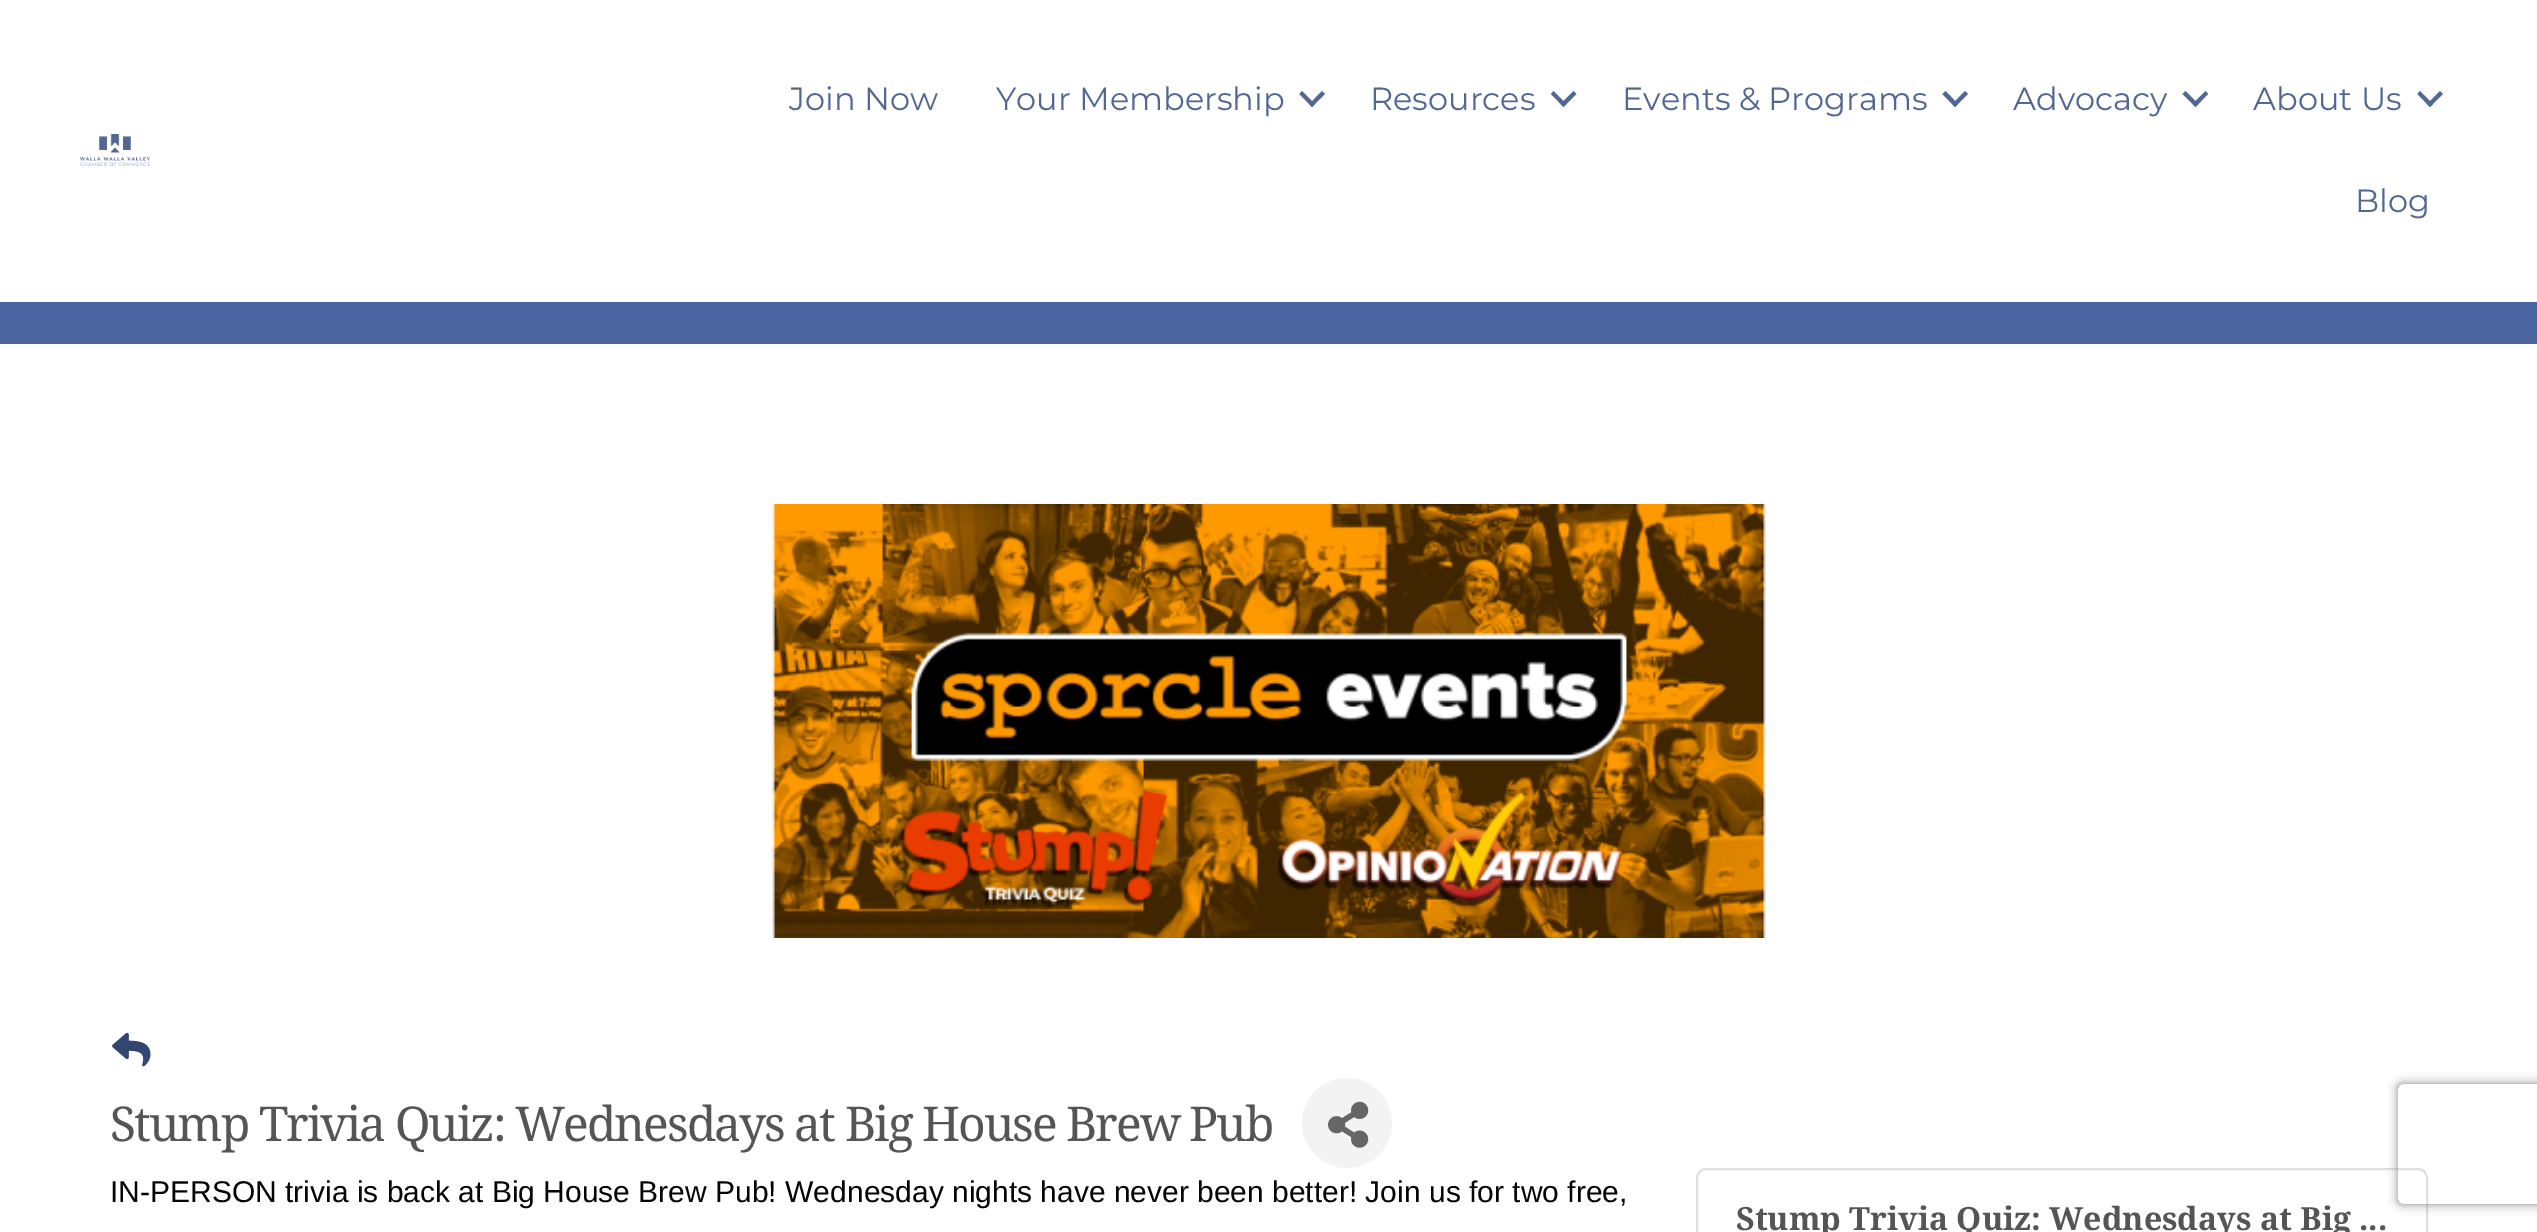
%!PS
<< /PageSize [2537 1232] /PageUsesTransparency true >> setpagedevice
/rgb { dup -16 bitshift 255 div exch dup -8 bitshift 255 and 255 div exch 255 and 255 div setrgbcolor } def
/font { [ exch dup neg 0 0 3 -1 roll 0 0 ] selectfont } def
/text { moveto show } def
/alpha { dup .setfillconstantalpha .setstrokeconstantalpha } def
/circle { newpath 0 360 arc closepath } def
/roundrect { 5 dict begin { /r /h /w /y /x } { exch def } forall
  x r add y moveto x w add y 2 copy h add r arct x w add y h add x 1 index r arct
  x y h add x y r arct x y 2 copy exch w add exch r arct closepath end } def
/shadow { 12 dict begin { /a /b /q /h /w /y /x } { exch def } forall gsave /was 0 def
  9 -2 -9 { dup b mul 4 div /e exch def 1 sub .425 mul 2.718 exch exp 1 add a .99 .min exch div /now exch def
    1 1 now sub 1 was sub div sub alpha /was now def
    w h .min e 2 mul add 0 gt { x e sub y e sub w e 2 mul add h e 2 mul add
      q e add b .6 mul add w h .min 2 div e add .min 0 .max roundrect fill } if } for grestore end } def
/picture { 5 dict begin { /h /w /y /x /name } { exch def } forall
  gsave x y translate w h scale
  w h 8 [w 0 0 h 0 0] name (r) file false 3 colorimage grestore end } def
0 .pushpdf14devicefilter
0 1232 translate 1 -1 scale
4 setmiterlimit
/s1 { /Montserrat-Regular 32 font 16#516794 rgb } def
/s2 { /LiberationSans-Regular 30 font 16#050505 rgb } def
/s3 { /NotoSerif-Bold 32 font 16#555555 rgb } def
16#FFFFFF rgb
0 0 2537 1232 rectfill
(pic1.raw) 80 134 70 32 picture
s1
(Join Now) 789 110 text
(Your Membership) 996 110 text
1322 91 moveto 1325 94 lineto 1312 107 lineto 1309.5 104 lineto closepath fill
1302 91 moveto 1315 104 lineto 1312 107 lineto 1299.5 94 lineto closepath fill
(Resources) 1370 110 text
1573.5 91 moveto 1576.5 94 lineto 1563.5 107 lineto 1560.5 104 lineto closepath fill
1553.5 91 moveto 1566.5 104 lineto 1563.5 107 lineto 1551 94 lineto closepath fill
(Events & Programs) 1622 110 text
1965 91 moveto 1968 94 lineto 1955 107 lineto 1952.5 104 lineto closepath fill
1945.5 91 moveto 1958 104 lineto 1955 107 lineto 1942.5 94 lineto closepath fill
(Advocacy) 2013 110 text
2205.5 91 moveto 2208 94 lineto 2195.5 107 lineto 2192.5 104 lineto closepath fill
2185.5 91 moveto 2198.5 104 lineto 2195.5 107 lineto 2182.5 94 lineto closepath fill
(About Us) 2253 110 text
2440 91 moveto 2443 94 lineto 2430 107 lineto 2427 104 lineto closepath fill
2420 91 moveto 2433 104 lineto 2430 107 lineto 2417.5 94 lineto closepath fill
(Blog) 2355 212 text
16#4A64A0 rgb
0 302 2537 42 rectfill
(pic2.raw) 772 504 994 434 picture
(pic3.raw) 112 1032 39 35 picture
/NotoSerif-Regular 48 font
16#555555 rgb
110 1141 moveto -2 0 (Stump Trivia Quiz: Wednesdays at Big House Brew Pub) ashow
16#F3F3F3 rgb
1347 1123 45 circle fill
(pic4.raw) 1328 1101 41 47 picture
s2
(IN-PERSON trivia is back at Big House Brew Pub! Wednesday nights have never been better! Join us for two free,) 110 1202 text
16#DFDFDF rgb
2 setlinewidth
1697 1169 730 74 9 roundrect stroke
s3
(Stump Trivia Quiz: Wednesdays at Big ...) 1736 1230 text
gsave
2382 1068 moveto 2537 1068 lineto 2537 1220 lineto 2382 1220 lineto closepath 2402 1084 moveto 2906 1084 lineto 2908 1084 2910 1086 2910 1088 curveto 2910 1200 lineto 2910 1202 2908 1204 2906 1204 curveto 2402 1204 lineto 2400 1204 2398 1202 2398 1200 curveto 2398 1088 lineto 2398 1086 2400 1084 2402 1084 curveto closepath eoclip newpath
16#808080 rgb
2398 1084 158 120 4 5 1 shadow
grestore
.poppdf14devicefilter showpage
